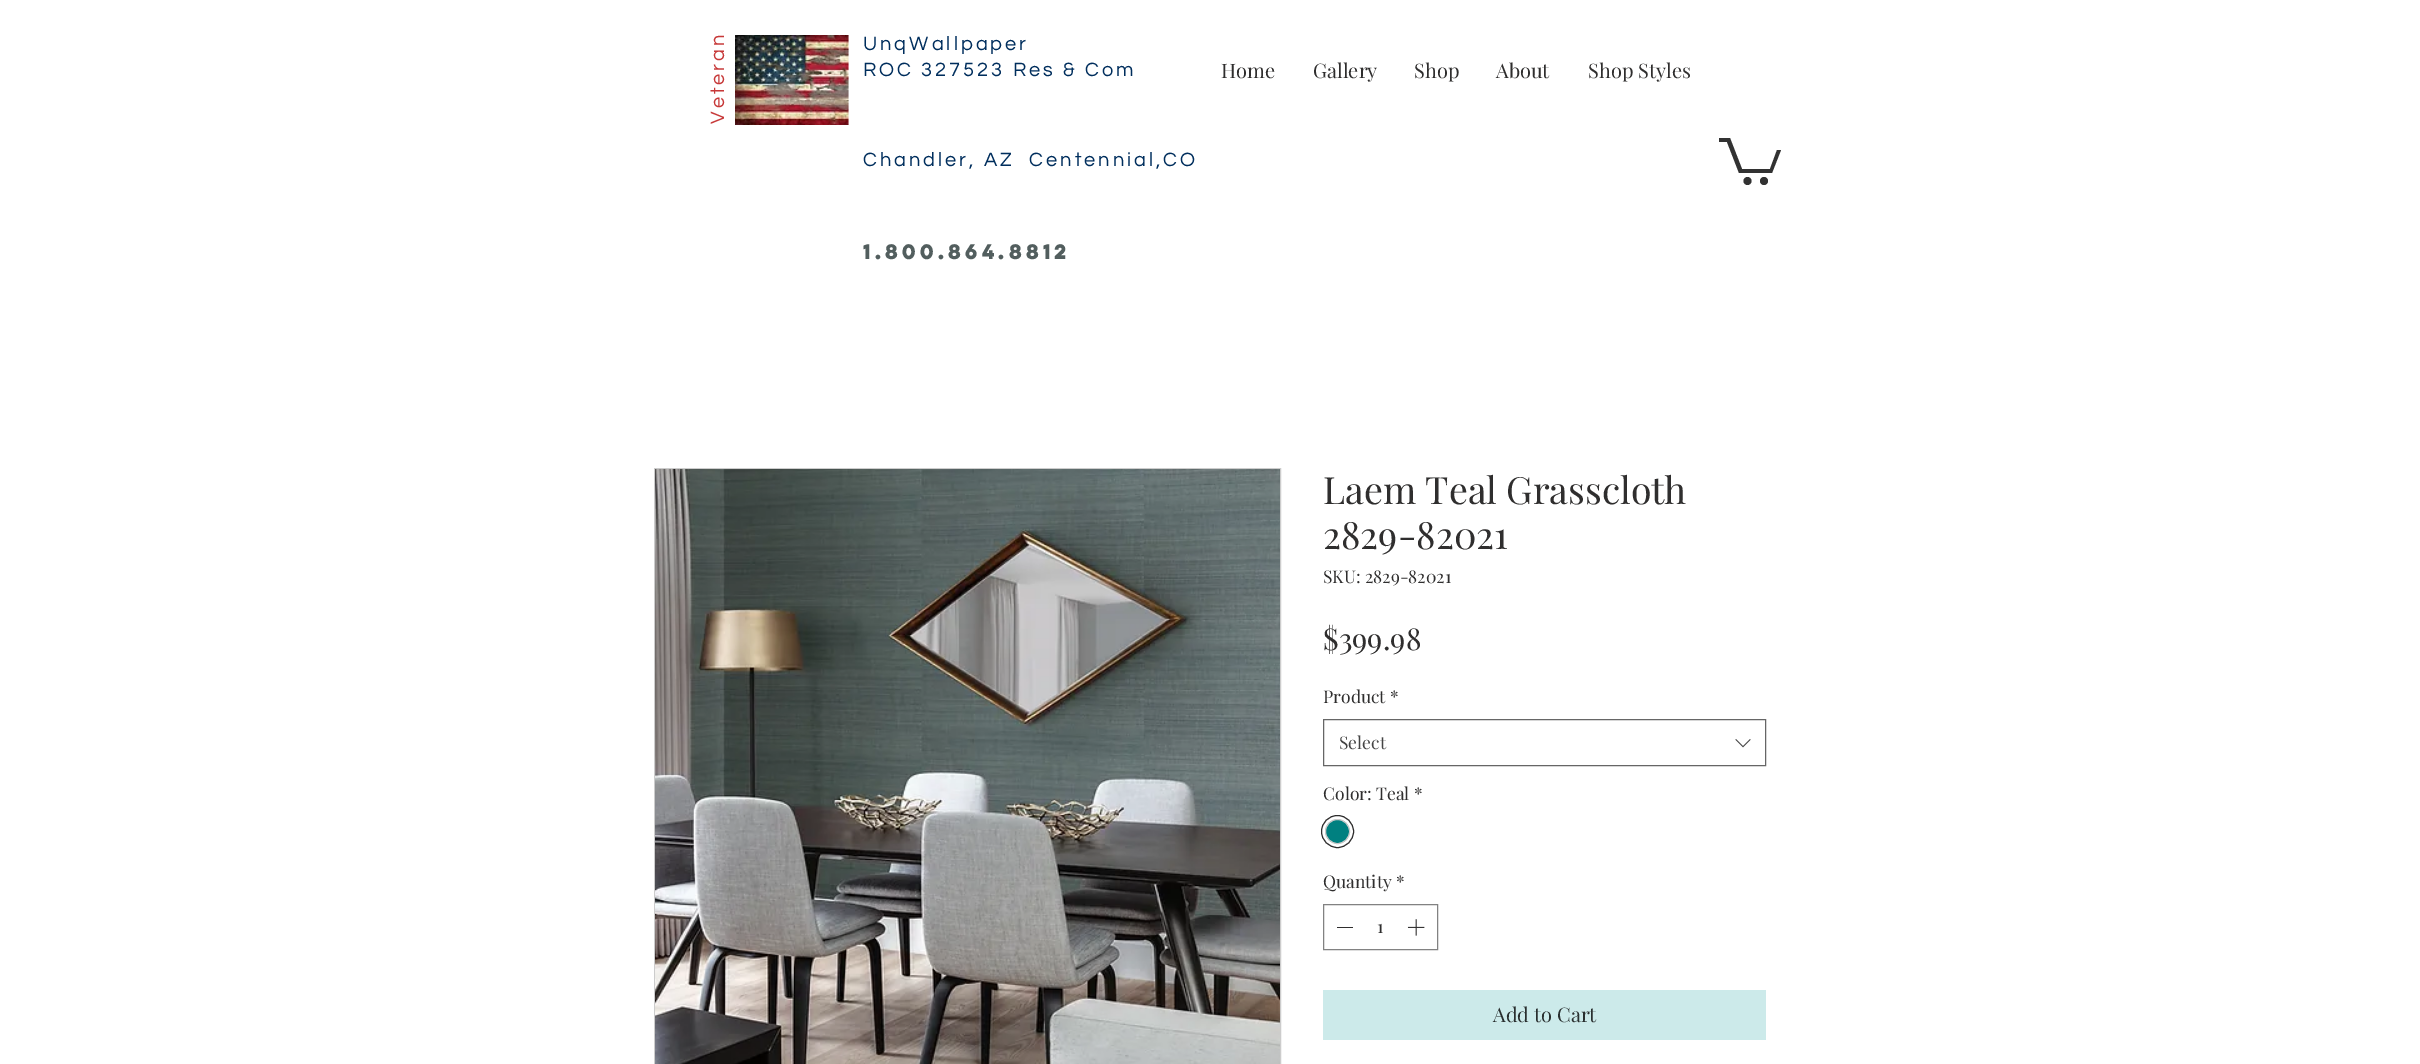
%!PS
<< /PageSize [2420 1064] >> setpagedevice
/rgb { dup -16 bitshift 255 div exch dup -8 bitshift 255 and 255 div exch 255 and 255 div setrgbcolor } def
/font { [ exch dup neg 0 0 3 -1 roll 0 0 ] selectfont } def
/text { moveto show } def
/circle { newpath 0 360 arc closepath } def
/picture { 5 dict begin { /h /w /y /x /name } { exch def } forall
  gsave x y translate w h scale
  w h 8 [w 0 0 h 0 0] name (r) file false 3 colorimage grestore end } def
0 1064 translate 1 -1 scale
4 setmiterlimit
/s1 { /PlayfairDisplay-Regular 20 font 16#2F2E2E rgb } def
/s2 { /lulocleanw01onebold-Bold 18.75 font 16#525E5E rgb } def
/s3 { /PlayfairDisplay-Regular 37.5 font 16#2F2E2E rgb } def
/s4 { /PlayfairDisplay-Regular 17.5 font 16#2F2E2E rgb } def
/s5 { /PlayfairDisplay-Regular 30 font 16#2F2E2E rgb } def
/s6 { /PlayfairDisplay-Regular 17.5 font 16#444444 rgb } def
/s7 { /PlayfairDisplay-Regular 20 font 16#292F2F rgb } def
16#FFFFFF rgb
0 0 2420 1064 rectfill
/Questrial-Regular 20 font
16#C73838 rgb
gsave 724 124 translate -90 rotate 0 0 moveto 3 0 (Veteran) ashow grestore
(pic1.raw) 735 35 114 90 picture
16#002E5D rgb
863 50 moveto 3 0 (UnqWallpaper) ashow
863 76 moveto 3 0 (ROC 327523 Res & Com) ashow
s1
(Home) 1221 78 text
(Gallery) 1313 78 text
(Shop) 1414 78 text
(About) 1496 78 text
(Shop Styles) 1588 78 text
/Questrial-Regular 20 font
16#002E5D rgb
863 166 moveto 3 0 (Chandler, AZ  Centennial,CO) ashow
16#323232 rgb
1781 150 moveto 1772 173 lineto 1739 173 lineto 1727 142 lineto 1719 142 lineto 1719 138 lineto 1730 138 lineto 1742 169 lineto 1770 169 lineto 1777 150 lineto fill
1764 181 4 circle fill
1747.5 181 4 circle fill
s2
(1.800.864.8812) 863 259 text
16#CCCCCC rgb
654.5 468.5 626 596 rectstroke
(pic2.raw) 655 469 625 595 picture
s3
(Laem Teal Grasscloth) 1323 504 text
(2829-82021) 1323 549 text
s4
(SKU: 2829-82021) 1323 583 text
s5
($399.98) 1323 650 text
s4
(Product) 1323 703 text
(*) 1390 703 text
16#666666 rgb
1323.5 719.5 442 46 rectstroke
s6
(Select) 1339 749 text
(pic3.raw) 1735 739 16 9 picture
s4
(Color: Teal) 1323 800 text
(*) 1414 800 text
1337.5 831.5 16 circle stroke
16#008080 rgb
1337.5 831.5 12 circle gsave fill grestore
16#C9C9C9 rgb
stroke
s4
(Quantity) 1323 888 text
(*) 1396 888 text
16#828282 rgb
1323.5 904.5 114 45 rectstroke
16#2F2E2E rgb
1337 927 16 1 rectfill
(1) 1377 933 text
(pic4.raw) 1407 919 18 17 picture
16#CCEAEA rgb
1323 990 443 50 rectfill
s7
(Add to Cart) 1493 1022 text
showpage
